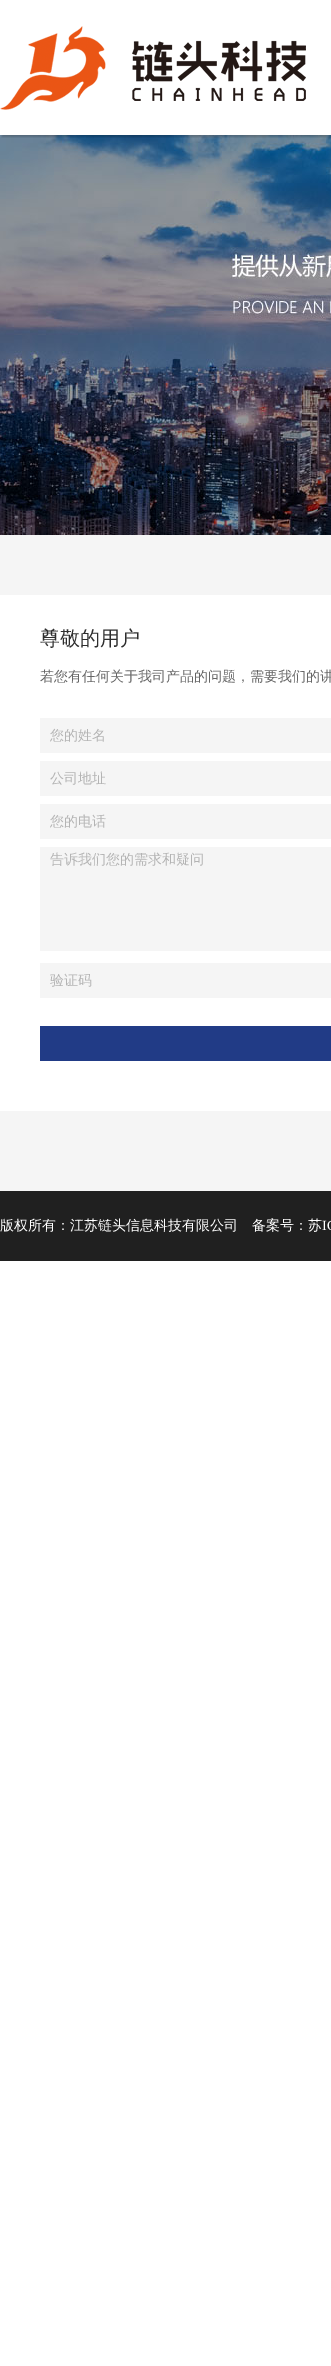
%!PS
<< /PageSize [331 2366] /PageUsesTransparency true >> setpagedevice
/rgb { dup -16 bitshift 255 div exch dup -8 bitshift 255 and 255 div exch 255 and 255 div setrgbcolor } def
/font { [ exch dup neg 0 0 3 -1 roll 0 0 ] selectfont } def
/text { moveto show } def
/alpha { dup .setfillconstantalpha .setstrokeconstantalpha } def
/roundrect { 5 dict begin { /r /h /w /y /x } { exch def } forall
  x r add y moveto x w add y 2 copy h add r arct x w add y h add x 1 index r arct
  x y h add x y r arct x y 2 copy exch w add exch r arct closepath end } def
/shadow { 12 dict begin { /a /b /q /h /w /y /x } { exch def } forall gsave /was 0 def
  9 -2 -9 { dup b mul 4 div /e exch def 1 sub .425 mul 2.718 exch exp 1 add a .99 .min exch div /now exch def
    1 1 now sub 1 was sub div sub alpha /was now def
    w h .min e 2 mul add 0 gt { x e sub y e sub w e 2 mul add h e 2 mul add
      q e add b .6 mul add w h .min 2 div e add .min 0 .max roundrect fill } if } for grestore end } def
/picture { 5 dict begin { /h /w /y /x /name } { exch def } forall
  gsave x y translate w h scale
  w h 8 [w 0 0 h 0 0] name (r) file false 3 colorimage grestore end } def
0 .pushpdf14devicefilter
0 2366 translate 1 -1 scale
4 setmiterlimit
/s1 { /WenQuanYiZenHei-Medium 20 font 16#2E2E2E rgb } def
/s2 { /WenQuanYiZenHei-Medium 14 font 16#666666 rgb } def
/s3 { /WenQuanYiZenHei-Medium 14 font 16#B4B4B4 rgb } def
/s4 { /WenQuanYiZenHei-Medium 14 font 16#FFFFFF rgb } def
/s5 { /LiberationSerif-Regular 14 font 16#FFFFFF rgb } def
16#FFFFFF rgb
0 0 331 2366 rectfill
(pic2.raw) 0 135 331 400 picture
gsave
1 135 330 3 rectclip
16#000000 rgb
2 2 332 135 0 1 0.2 shadow
grestore
(pic1.raw) 0 26 306 84 picture
16#F5F5F5 rgb
0 535 331 656 rectfill
16#FFFFFF rgb
0 595 331 516 rectfill
s1
(尊敬的用户) 40 645 text
s2
(若您有任何关于我司产品的问题，需要我们的讲) 40 681 text
16#F5F5F5 rgb
40 718 291 35 rectfill
s3
(您的姓名) 50 740 text
16#F5F5F5 rgb
40 761 291 35 rectfill
s3
(公司地址) 50 783 text
16#F5F5F5 rgb
40 804 291 35 rectfill
s3
(您的电话) 50 826 text
16#F5F5F5 rgb
40 847 291 104 rectfill
s3
(告诉我们您的需求和疑问) 50 864 text
16#F5F5F5 rgb
40 963 291 35 rectfill
s3
(验证码) 50 985 text
16#213B86 rgb
40 1026 291 35 rectfill
16#202020 rgb
0 1191 331 70 rectfill
s4
(版权所有：江苏链头信息科技有限公司) 0 1230 text
(备案号：苏) 252 1230 text
s5
(IC) 322 1230 text
.poppdf14devicefilter showpage
